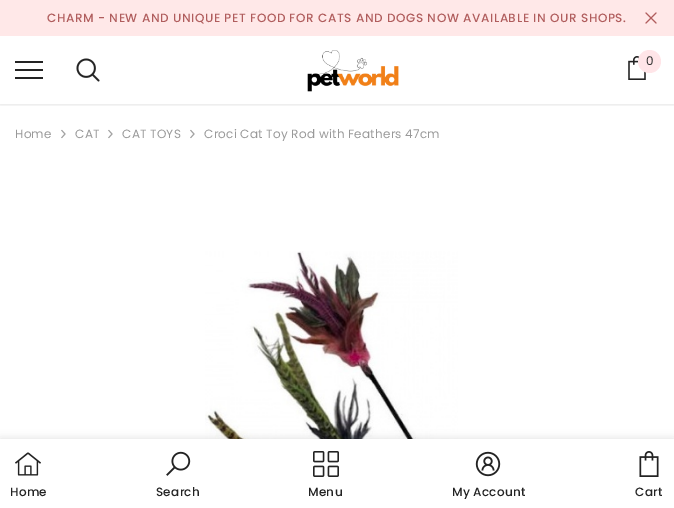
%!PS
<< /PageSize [674 508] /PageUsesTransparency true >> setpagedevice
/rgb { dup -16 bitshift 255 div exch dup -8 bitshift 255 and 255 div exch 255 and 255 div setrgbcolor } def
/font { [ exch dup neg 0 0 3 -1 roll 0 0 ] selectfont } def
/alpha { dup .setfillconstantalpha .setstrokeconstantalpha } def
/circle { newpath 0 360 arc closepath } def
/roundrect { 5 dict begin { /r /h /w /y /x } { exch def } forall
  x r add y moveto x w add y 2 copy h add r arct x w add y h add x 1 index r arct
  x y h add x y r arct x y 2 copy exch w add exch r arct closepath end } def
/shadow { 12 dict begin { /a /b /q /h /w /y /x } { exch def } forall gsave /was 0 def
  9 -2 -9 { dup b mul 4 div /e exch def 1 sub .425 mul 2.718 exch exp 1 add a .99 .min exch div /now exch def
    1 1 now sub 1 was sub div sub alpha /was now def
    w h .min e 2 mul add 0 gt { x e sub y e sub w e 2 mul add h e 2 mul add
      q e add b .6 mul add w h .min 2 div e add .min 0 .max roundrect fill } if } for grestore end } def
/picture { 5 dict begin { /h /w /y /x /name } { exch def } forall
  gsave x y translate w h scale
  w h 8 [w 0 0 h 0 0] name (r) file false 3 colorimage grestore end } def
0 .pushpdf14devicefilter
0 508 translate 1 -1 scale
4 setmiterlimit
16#FFFFFF rgb
0 0 674 508 rectfill
16#FFE8E8 rgb
0 0 674 36 rectfill
/Poppins-Medium 12 font
16#B05D5D rgb
47 22 moveto 0.6 0 (CHARM - NEW AND UNIQUE PET FOOD FOR CATS AND DOGS NOW AVAILABLE IN OUR SHOPS.) ashow
(pic1.raw) 645 12 12 12 picture
gsave
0 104 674 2 rectclip
16#000000 rgb
0 37 674 68 0 1.5 0.1 shadow
grestore
16#232323 rgb
15 69 28 2 rectfill
15 61 28 2 rectfill
15 77 28 2 rectfill
(pic2.raw) 76 58 24 24 picture
(pic3.raw) 307 50 92 42 picture
(pic4.raw) 628 56 18 24 picture
16#FFE5E8 rgb
649.5 61.5 11.5 circle fill
/Poppins-Regular 12 font
16#323232 rgb
646 65 moveto 0.25 0 (0) ashow
16#999999 rgb
15 138 moveto 0.25 0 (Home) ashow
(pic5.raw) 61 129 5 10 picture
75 138 moveto 0.25 0 (CAT) ashow
(pic5.raw) 108 129 5 10 picture
122 138 moveto 0.25 0 (CAT TOYS) ashow
(pic5.raw) 190 129 5 10 picture
204 138 moveto 0.25 0 (Croci Cat Toy Rod with Feathers 47cm) ashow
(pic6.raw) 205 251 253 188 picture
16#000000 rgb
0 439 674 69 0 4.5 0.12 shadow
16#FFFFFF rgb
0 439 674 69 rectfill
(pic7.raw) 15 452 26 24 picture
/Poppins-Medium 12 font
16#232323 rgb
10 496 moveto 0.25 0 (Home) ashow
(pic8.raw) 166 451 25 25 picture
156 496 moveto 0.25 0 (Search) ashow
(pic9.raw) 313 451 26 26 picture
308 496 moveto 0.25 0 (Menu) ashow
(pic10.raw) 475 451 26 26 picture
452 496 moveto 0.25 0 (My Account) ashow
(pic11.raw) 639 451 20 26 picture
635 496 moveto 0.25 0 (Cart) ashow
.poppdf14devicefilter showpage
